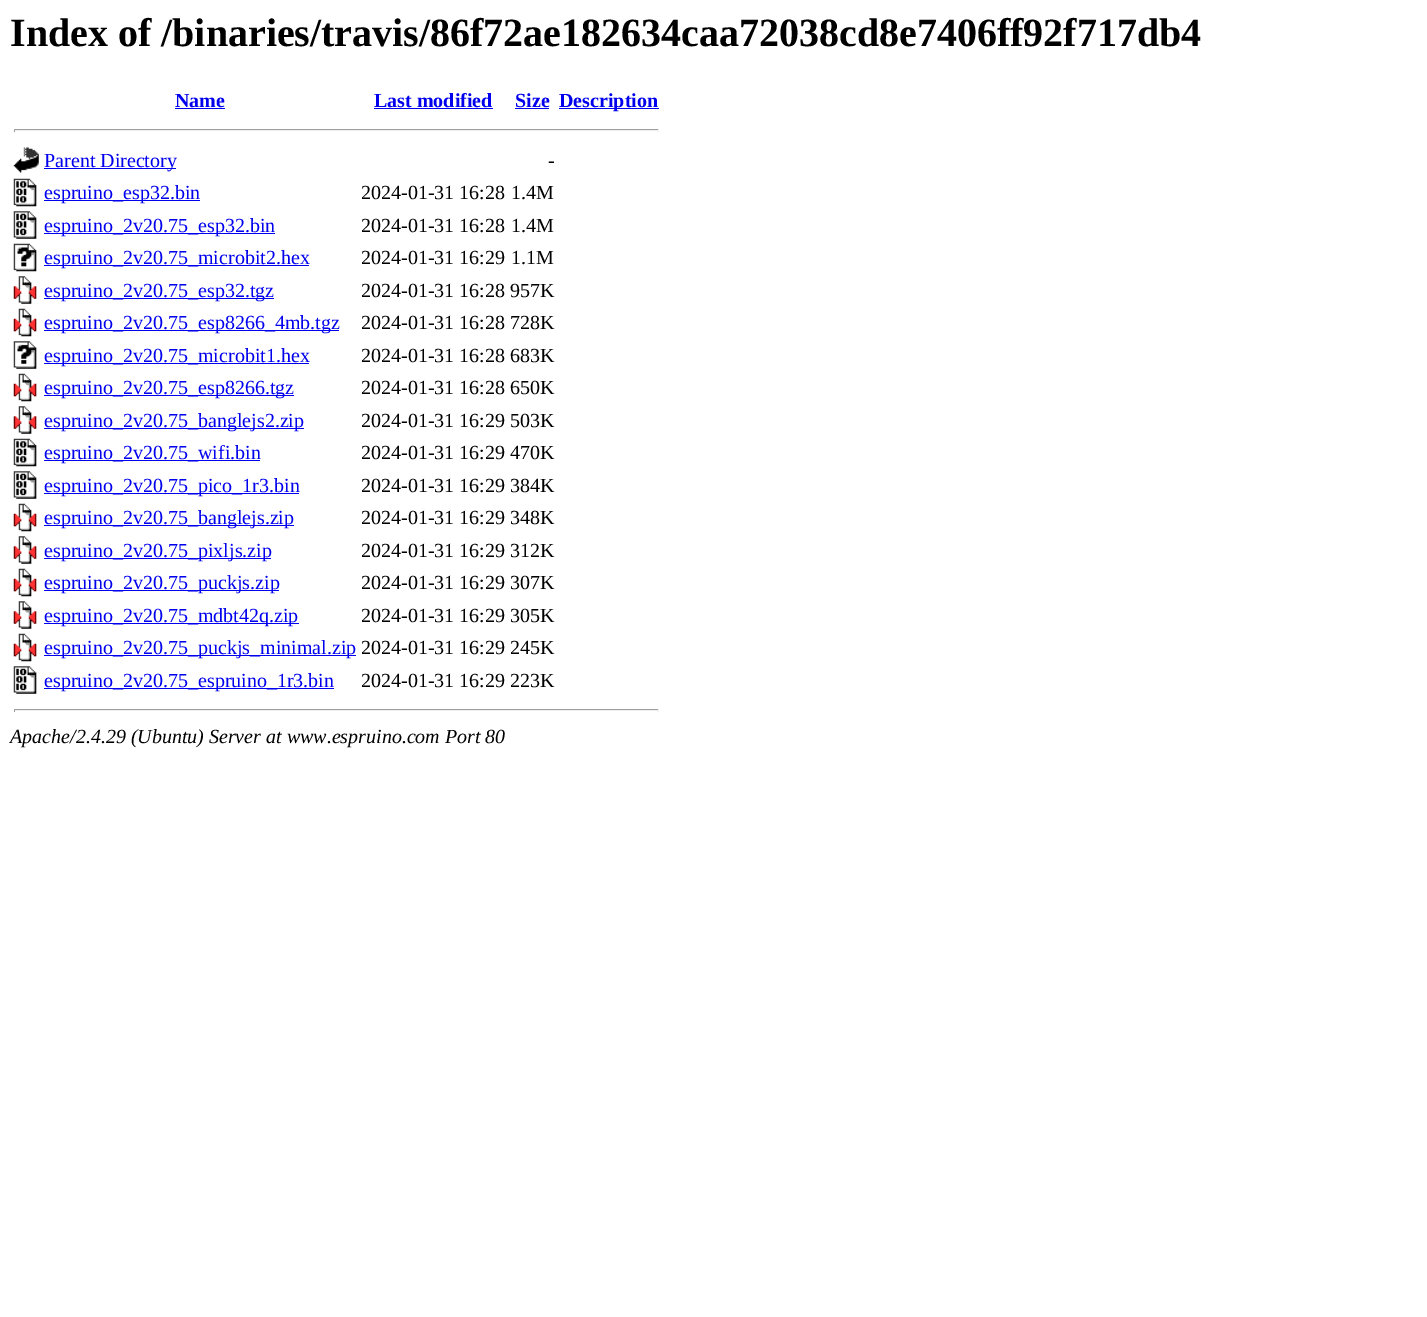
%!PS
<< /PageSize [1427 1317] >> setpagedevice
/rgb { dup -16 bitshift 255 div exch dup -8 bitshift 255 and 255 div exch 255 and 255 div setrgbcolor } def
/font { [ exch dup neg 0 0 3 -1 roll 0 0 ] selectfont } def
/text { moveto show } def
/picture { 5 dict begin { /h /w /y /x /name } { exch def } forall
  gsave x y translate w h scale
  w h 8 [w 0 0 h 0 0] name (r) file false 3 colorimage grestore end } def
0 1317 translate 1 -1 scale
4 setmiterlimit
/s1 { /LiberationSerif-Bold 40 font 16#000000 rgb } def
/s2 { /LiberationSerif-Bold 20 font 16#0000EE rgb } def
/s3 { /LiberationSerif-Regular 20 font 16#0000EE rgb } def
/s4 { /LiberationSerif-Regular 20 font 16#000000 rgb } def
/s5 { /LiberationSerif-Italic 20 font 16#000000 rgb } def
16#FFFFFF rgb
0 0 1427 1317 rectfill
s1
(Index of /binaries/travis/86f72ae182634caa72038cd8e7406ff92f717db4) 10 46 text
s2
(Name) 175 107 text
175 108 50 1 rectfill
(Last modified) 374 107 text
374 108 119 1 rectfill
(Size) 515 107 text
515 108 34 1 rectfill
559 108 100 1 rectfill
(Description) 559 107 text
16#9F9F9F rgb
14 129 645 1 rectfill
16#EEEEEE rgb
658 129 1 3 rectfill
14 130 645 1 rectfill
16#9F9F9F rgb
14 129 1 3 rectfill
(pic1.raw) 13 147 26 26 picture
16#0000EE rgb
44 168 132 1 rectfill
s3
(Parent Directory) 44 167 text
s4
(-) 548 167 text
(pic2.raw) 13 178 24 29 picture
16#0000EE rgb
44 200 156 1 rectfill
(espruino_esp32.bin) 44 199 text
s4
(2024-01-31 16:28) 361 199 text
(1.4M) 511 199 text
(pic3.raw) 13 211 24 28 picture
16#0000EE rgb
44 233 231 1 rectfill
(espruino_2v20.75_esp32.bin) 44 232 text
s4
(2024-01-31 16:28) 361 232 text
(1.4M) 511 232 text
(pic4.raw) 13 243 24 29 picture
16#0000EE rgb
44 265 265 1 rectfill
(espruino_2v20.75_microbit2.hex) 44 264 text
s4
(2024-01-31 16:29) 361 264 text
(1.1M) 511 264 text
(pic5.raw) 13 276 24 28 picture
16#0000EE rgb
44 298 230 1 rectfill
(espruino_2v20.75_esp32.tgz) 44 297 text
s4
(2024-01-31 16:28 957K) 361 297 text
(pic6.raw) 13 308 24 29 picture
16#0000EE rgb
44 330 295 1 rectfill
(espruino_2v20.75_esp8266_4mb.tgz) 44 329 text
s4
(2024-01-31 16:28 728K) 361 329 text
(pic7.raw) 13 341 24 28 picture
16#0000EE rgb
44 363 265 1 rectfill
(espruino_2v20.75_microbit1.hex) 44 362 text
s4
(2024-01-31 16:28 683K) 361 362 text
(pic6.raw) 13 373 24 29 picture
16#0000EE rgb
44 395 250 1 rectfill
(espruino_2v20.75_esp8266.tgz) 44 394 text
s4
(2024-01-31 16:28 650K) 361 394 text
(pic8.raw) 13 406 24 28 picture
16#0000EE rgb
44 428 260 1 rectfill
(espruino_2v20.75_banglejs2.zip) 44 427 text
s4
(2024-01-31 16:29 503K) 361 427 text
(pic2.raw) 13 438 24 29 picture
16#0000EE rgb
44 460 216 1 rectfill
(espruino_2v20.75_wifi.bin) 44 459 text
s4
(2024-01-31 16:29 470K) 361 459 text
(pic3.raw) 13 471 24 28 picture
16#0000EE rgb
44 493 255 1 rectfill
(espruino_2v20.75_pico_1r3.bin) 44 492 text
s4
(2024-01-31 16:29 384K) 361 492 text
(pic6.raw) 13 503 24 29 picture
16#0000EE rgb
44 525 250 1 rectfill
(espruino_2v20.75_banglejs.zip) 44 524 text
s4
(2024-01-31 16:29 348K) 361 524 text
(pic8.raw) 13 536 24 28 picture
16#0000EE rgb
44 558 227 1 rectfill
(espruino_2v20.75_pixljs.zip) 44 557 text
s4
(2024-01-31 16:29 312K) 361 557 text
(pic6.raw) 13 568 24 29 picture
16#0000EE rgb
44 590 235 1 rectfill
(espruino_2v20.75_puckjs.zip) 44 589 text
s4
(2024-01-31 16:29 307K) 361 589 text
(pic8.raw) 13 601 24 28 picture
16#0000EE rgb
44 623 255 1 rectfill
(espruino_2v20.75_mdbt42q.zip) 44 622 text
s4
(2024-01-31 16:29 305K) 361 622 text
(pic6.raw) 13 633 24 29 picture
16#0000EE rgb
44 655 312 1 rectfill
(espruino_2v20.75_puckjs_minimal.zip) 44 654 text
s4
(2024-01-31 16:29 245K) 361 654 text
(pic3.raw) 13 666 24 28 picture
16#0000EE rgb
44 688 290 1 rectfill
(espruino_2v20.75_espruino_1r3.bin) 44 687 text
s4
(2024-01-31 16:29 223K) 361 687 text
16#9F9F9F rgb
14 709 645 1 rectfill
16#EEEEEE rgb
658 709 1 3 rectfill
14 710 645 1 rectfill
16#9F9F9F rgb
14 709 1 3 rectfill
s5
(Apache/2.4.29 \(Ubuntu\) Server at www.espruino.com Port 80) 10 743 text
showpage
